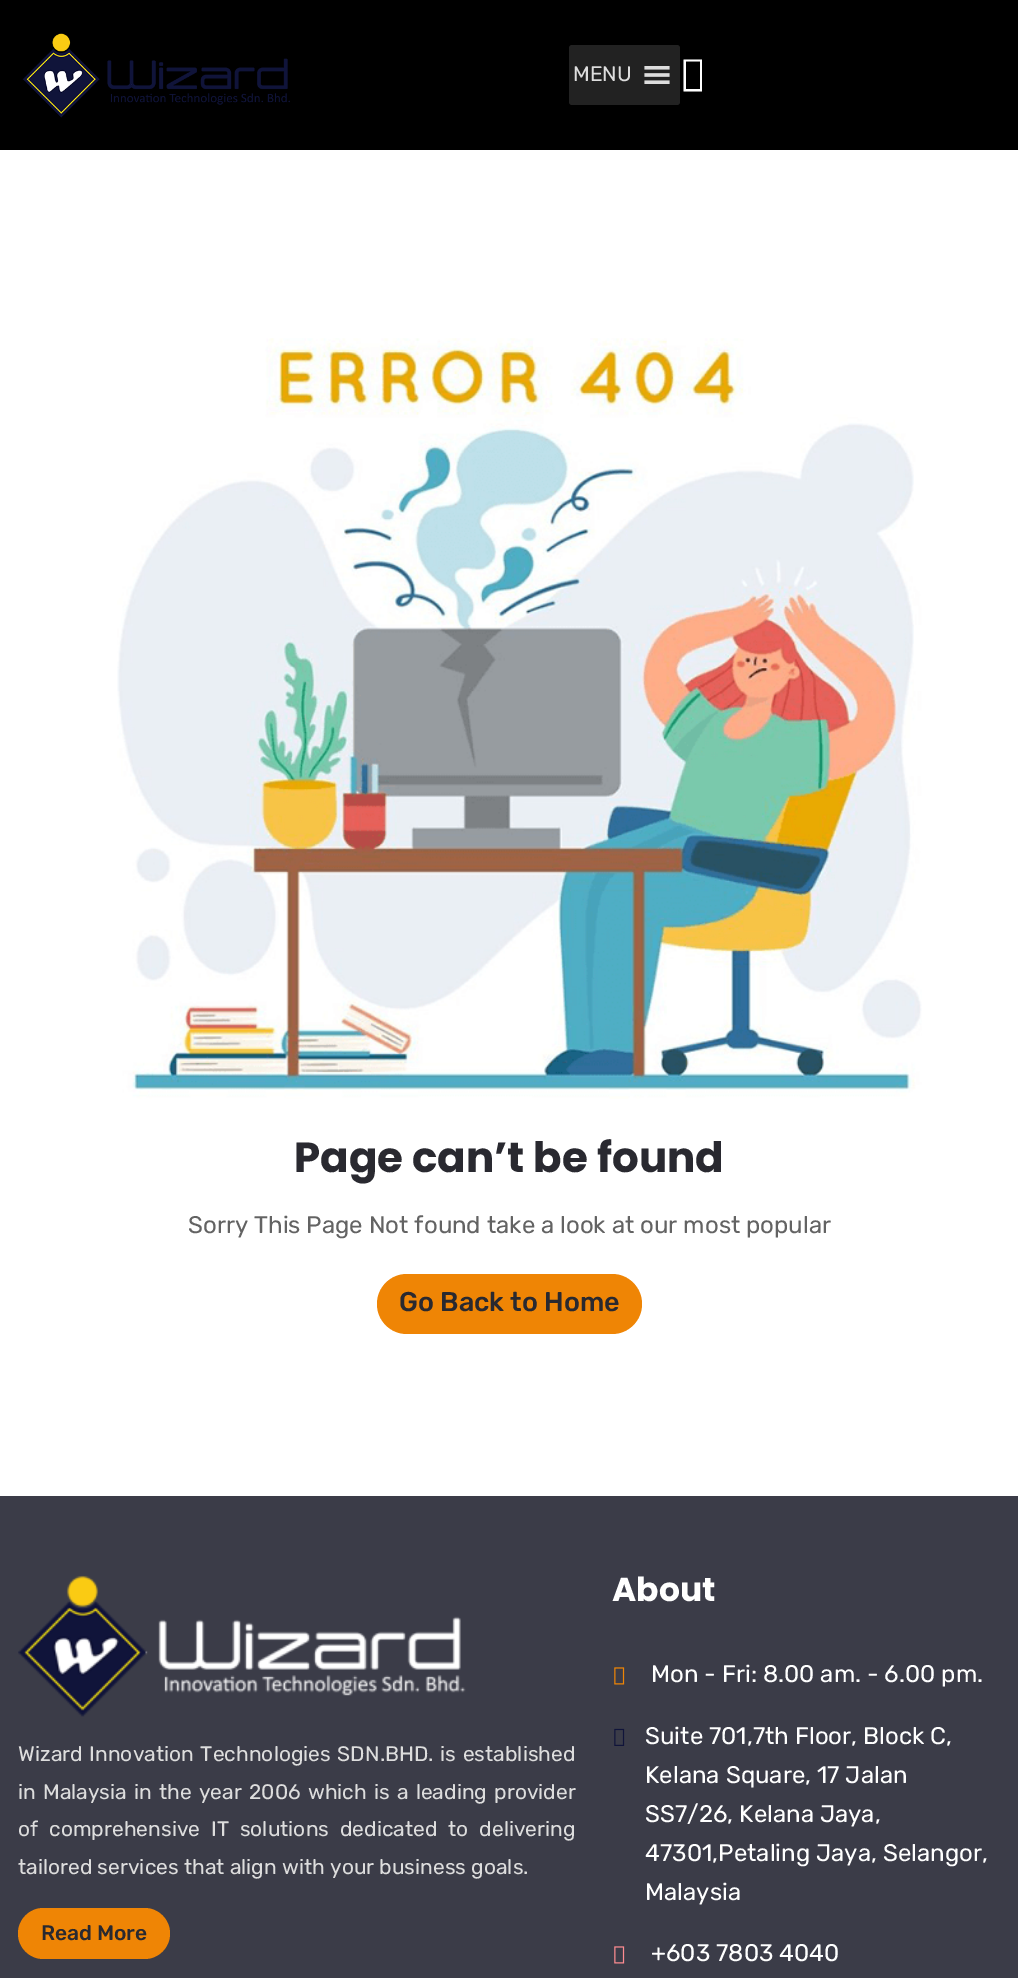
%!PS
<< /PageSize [1018 1978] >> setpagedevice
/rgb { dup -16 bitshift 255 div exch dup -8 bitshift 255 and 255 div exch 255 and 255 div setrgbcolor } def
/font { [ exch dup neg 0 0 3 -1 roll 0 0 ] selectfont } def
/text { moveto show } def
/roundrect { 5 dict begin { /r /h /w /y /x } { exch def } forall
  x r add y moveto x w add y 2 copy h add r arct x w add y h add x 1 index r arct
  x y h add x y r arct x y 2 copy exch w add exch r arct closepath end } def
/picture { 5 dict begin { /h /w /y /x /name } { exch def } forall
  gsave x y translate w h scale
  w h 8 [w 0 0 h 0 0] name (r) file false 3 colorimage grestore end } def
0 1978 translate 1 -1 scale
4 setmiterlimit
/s1 { /Rubik-Regular 21 font 16#DDDDDD rgb } def
/s2 { /Poppins-Bold 42 font 16#292930 rgb } def
/s3 { /Rubik-Regular 24 font 16#636363 rgb } def
/s4 { /Rubik-Medium 27 font 16#292930 rgb } def
/s5 { /Rubik-Medium 21 font 16#292930 rgb } def
/s6 { /Poppins-Bold 33 font 16#FFFFFF rgb } def
/s7 { /Rubik-Regular 24 font 16#FFFFFF rgb } def
16#FFFFFF rgb
0 0 1018 1978 rectfill
16#000000 rgb
0 0 1018 150 rectfill
(pic1.raw) 22 33 268 85 picture
16#222222 rgb
569 45 111 60 3 roundrect fill
s1
(MENU) 573 81 text
(pic2.raw) 644 66 26 18 picture
16#FFFFFF rgb
683.5 91.5 moveto 683.5 59.5 lineto 702 59.5 lineto 702 91.5 lineto closepath 686 89 moveto 700 89 lineto 700 61.5 lineto 686 61.5 lineto closepath fill
(pic3.raw) 117 338 805 761 picture
s2
(Page can’t be found) 294 1172 text
s3
(Sorry This Page Not found take a look at our most popular) 188 1233 text
16#EF8505 rgb
377 1274 265 60 30 roundrect fill
s4
(Go Back to Home) 399 1311 text
16#3B3C48 rgb
0 1496 1018 482 rectfill
(pic4.raw) 18 1575 448 142 picture
/Rubik-Regular 21 font
16#DDDDDD rgb
18 1761 moveto 1.5 0 32 (Wizard Innovation Technologies SDN.BHD. is established) widthshow
18 1799 moveto 2 0 32 (in Malaysia in the year 2006 which is a leading provider) widthshow
18 1836 moveto 5.75 0 32 (of comprehensive IT solutions dedicated to delivering) widthshow
(tailored services that align with your business goals.) 18 1874 text
16#EF8505 rgb
18 1908 152 51 25.5 roundrect fill
s5
(Read More) 41 1940 text
s6
(About) 612 1601 text
(pic5.raw) 614 1667 11 18 picture
s7
(Mon - Fri: 8.00 am. - 6.00 pm.) 651 1682 text
(pic6.raw) 614 1728 11 18 picture
(Suite 701,7th Floor, Block C,) 645 1744 text
(Kelana Square, 17 Jalan) 645 1783 text
(SS7/26, Kelana Jaya,) 645 1822 text
(47301,Petaling Jaya, Selangor,) 645 1861 text
(Malaysia) 645 1900 text
(pic7.raw) 614 1946 11 18 picture
(+603 7803 4040) 651 1961 text
showpage
